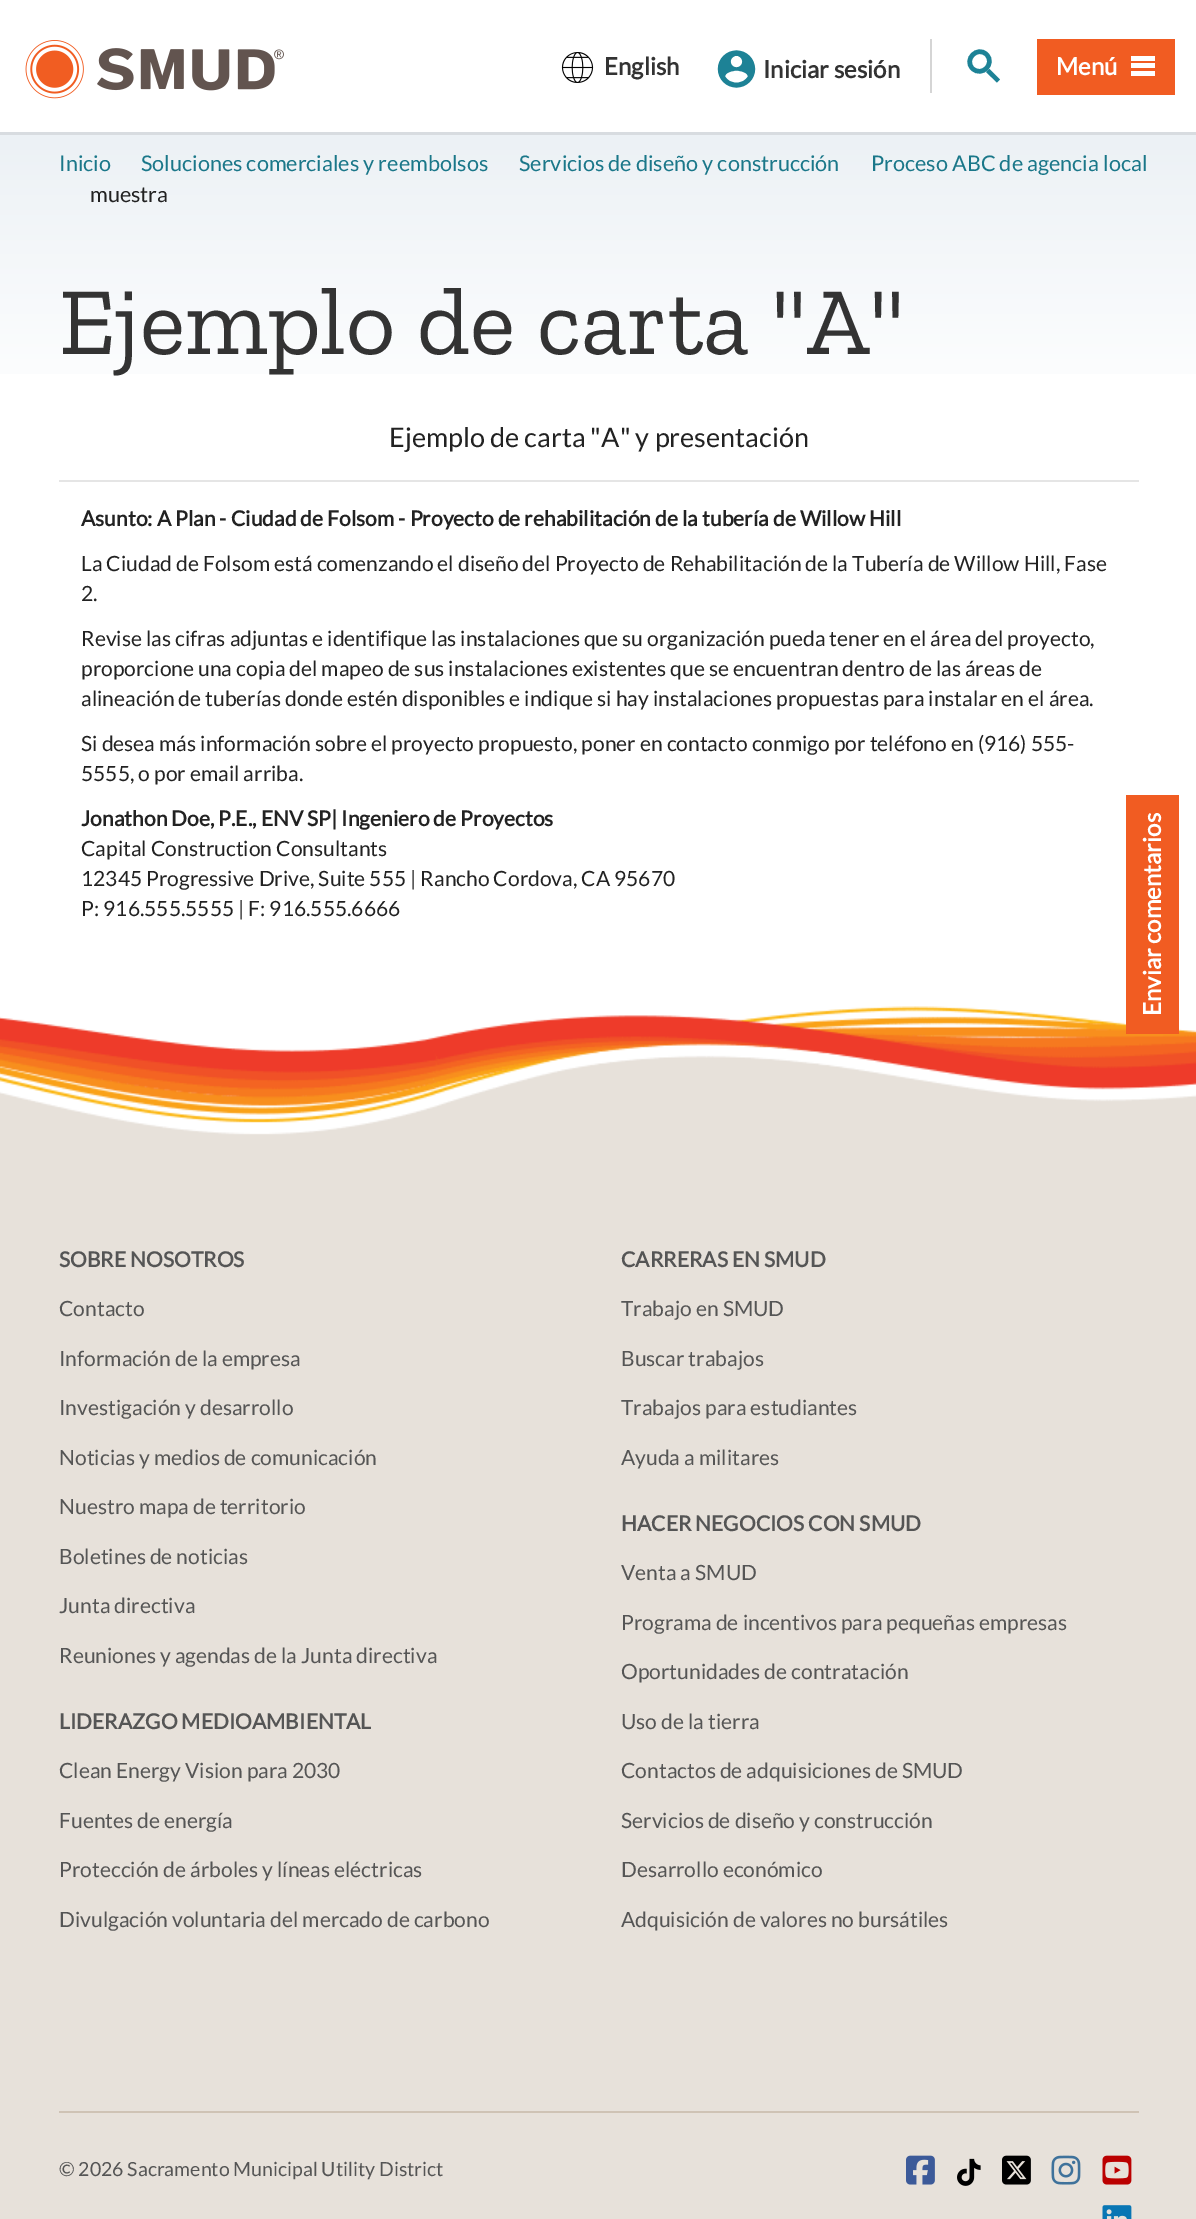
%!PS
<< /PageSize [1196 2219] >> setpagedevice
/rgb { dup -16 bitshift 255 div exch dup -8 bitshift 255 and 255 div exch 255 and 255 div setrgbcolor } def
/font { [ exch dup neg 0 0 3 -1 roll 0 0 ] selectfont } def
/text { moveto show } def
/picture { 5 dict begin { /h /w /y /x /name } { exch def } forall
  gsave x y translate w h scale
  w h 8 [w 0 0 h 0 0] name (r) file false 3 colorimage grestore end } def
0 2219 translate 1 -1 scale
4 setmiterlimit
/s1 { /Lato-Bold 24 font 16#333333 rgb } def
/s2 { /Lato-Bold 24 font 16#FFFFFF rgb } def
/s3 { /Lato-Regular 21.6 font 16#1A7789 rgb } def
/s4 { /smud-Regular 11 font 16#517891 rgb } def
/s5 { /Lato-Regular 21.6 font 16#222222 rgb } def
/s6 { /ZillaSlab-Regular 96 font 16#333333 rgb } def
/s7 { /Lato-Regular 27 font 16#222222 rgb } def
/s8 { /Lato-Bold 21 font 16#222222 rgb } def
/s9 { /Lato-Regular 21 font 16#222222 rgb } def
/s10 { /Lato-Bold 21 font 16#555555 rgb } def
/s11 { /Lato-Regular 21 font 16#555555 rgb } def
/s12 { /Lato-Regular 19.5 font 16#555555 rgb } def
16#FFFFFF rgb
0 0 1196 2219 rectfill
(pic1.raw) 25 40 259 59 picture
(pic2.raw) 561 52 33 31 picture
s1
(English) 604 75 text
(pic3.raw) 717 50 39 38 picture
(Iniciar sesión) 763 78 text
16#D5D5D5 rgb
930 39 2 54 rectfill
16#1D8296 rgb
989.5 69 moveto 1000 79.5 lineto 997 82.5 lineto 986 72 lineto closepath fill
4.5 setlinewidth
986.5 54.5 moveto 995.5 63.5 982 77.5 972.5 68.5 curveto 963.5 59.5 977.5 45.5 986.5 54.5 curveto closepath stroke
16#F15C22 rgb
1037 39 138 56 rectfill
s2
(Menú) 1056 75 text
1131 56 24 5 rectfill
1131 63 24 5 rectfill
1131 71 24 5 rectfill
gsave 0 135 moveto 1196 135 lineto 1196 374 lineto 0 374 lineto closepath clip newpath
<< /ShadingType 2 /ColorSpace /DeviceRGB /Coords [599 1061 599 132] /Extend [true true] /Function << /FunctionType 3 /Domain [0 1] /Functions [<< /FunctionType 2 /Domain [0 1] /C0 [1 1 1] /C1 [1 1 1] /N 1 >> << /FunctionType 2 /Domain [0 1] /C0 [1 1 1] /C1 [1 1 1] /N 1 >> << /FunctionType 2 /Domain [0 1] /C0 [1 1 1] /C1 [0.925 0.945 0.961] /N 1 >>] /Bounds [0.3 0.7] /Encode [0 1 0 1 0 1] >> >> shfill grestore
16#D8DCE0 rgb
0 132 1196 3 rectfill
s3
(Inicio) 59 171 text
s4
() 118 168 text
s3
(Soluciones comerciales y reembolsos) 141 171 text
s4
() 496 168 text
s3
(Servicios de diseño y construcción) 519 171 text
s4
() 847 168 text
s3
(Proceso ABC de agencia local) 871 171 text
s4
() 66 199 text
s5
(muestra) 90 202 text
s6
(Ejemplo de carta "A") 59 354 text
16#E5E5E5 rgb
59 480 1080 2 rectfill
s7
(Ejemplo de carta "A" y presentación) 389 447 text
s8
(Asunto: A Plan - Ciudad de Folsom - Proyecto de rehabilitación de la tubería de Willow Hill) 81 526 text
s9
(La Ciudad de Folsom está comenzando el diseño del Proyecto de Rehabilitación de la Tubería de Willow Hill, Fase) 81 571 text
(2.) 81 601 text
(Revise las cifras adjuntas e identifique las instalaciones que su organización pueda tener en el área del proyecto,) 81 646 text
(proporcione una copia del mapeo de sus instalaciones existentes que se encuentran dentro de las áreas de) 81 676 text
(alineación de tuberías donde estén disponibles e indique si hay instalaciones propuestas para instalar en el área.) 81 706 text
(Si desea más información sobre el proyecto propuesto, poner en contacto conmigo por teléfono en \(916\) 555-) 81 751 text
(5555, o por email arriba.) 81 781 text
s8
(Jonathon Doe, P.E., ENV SP| Ingeniero de Proyectos) 81 826 text
s9
(Capital Construction Consultants) 81 856 text
(12345 Progressive Drive, Suite 555 | Rancho Cordova, CA 95670) 81 886 text
(P: 916.555.5555 | F: 916.555.6666) 81 916 text
(pic4.raw) 0 1006 1196 129 picture
16#F15C22 rgb
1126 795 53 239 rectfill
/Lato-Bold 24 font
16#FFFFFF rgb
gsave 1161 1016 translate -90 rotate 0 0 moveto (Enviar comentarios) show grestore
16#E7E1DA rgb
0 1135 1196 1084 rectfill
s10
(SOBRE NOSOTROS) 59 1267 text
s11
(Contacto) 59 1316 text
(Información de la empresa) 59 1366 text
(Investigación y desarrollo) 59 1415 text
(Noticias y medios de comunicación) 59 1465 text
(Nuestro mapa de territorio) 59 1514 text
(Boletines de noticias) 59 1564 text
(Junta directiva) 59 1613 text
(Reuniones y agendas de la Junta directiva) 59 1663 text
s10
(LIDERAZGO MEDIOAMBIENTAL) 59 1729 text
s11
(Clean Energy Vision para 2030) 59 1778 text
(Fuentes de energía) 59 1828 text
(Protección de árboles y líneas eléctricas) 59 1877 text
(Divulgación voluntaria del mercado de carbono) 59 1927 text
s10
(CARRERAS EN SMUD) 621 1267 text
s11
(Trabajo en SMUD) 621 1316 text
(Buscar trabajos) 621 1366 text
(Trabajos para estudiantes) 621 1415 text
(Ayuda a militares) 621 1465 text
s10
(HACER NEGOCIOS CON SMUD) 621 1531 text
s11
(Venta a SMUD) 621 1580 text
(Programa de incentivos para pequeñas empresas) 621 1630 text
(Oportunidades de contratación) 621 1679 text
(Uso de la tierra) 621 1729 text
(Contactos de adquisiciones de SMUD) 621 1778 text
(Servicios de diseño y construcción) 621 1828 text
(Desarrollo económico) 621 1877 text
(Adquisición de valores no bursátiles) 621 1927 text
16#CFC3B5 rgb
59 2111 1080 2 rectfill
s12
(© 2026 Sacramento Municipal Utility District) 59 2176 text
(pic5.raw) 906 2155 29 30 picture
(pic6.raw) 957 2158 24 28 picture
(pic7.raw) 1002 2155 29 30 picture
(pic8.raw) 1051 2155 30 30 picture
(pic9.raw) 1102 2155 30 30 picture
(pic10.raw) 1102 2205 30 14 picture
showpage
